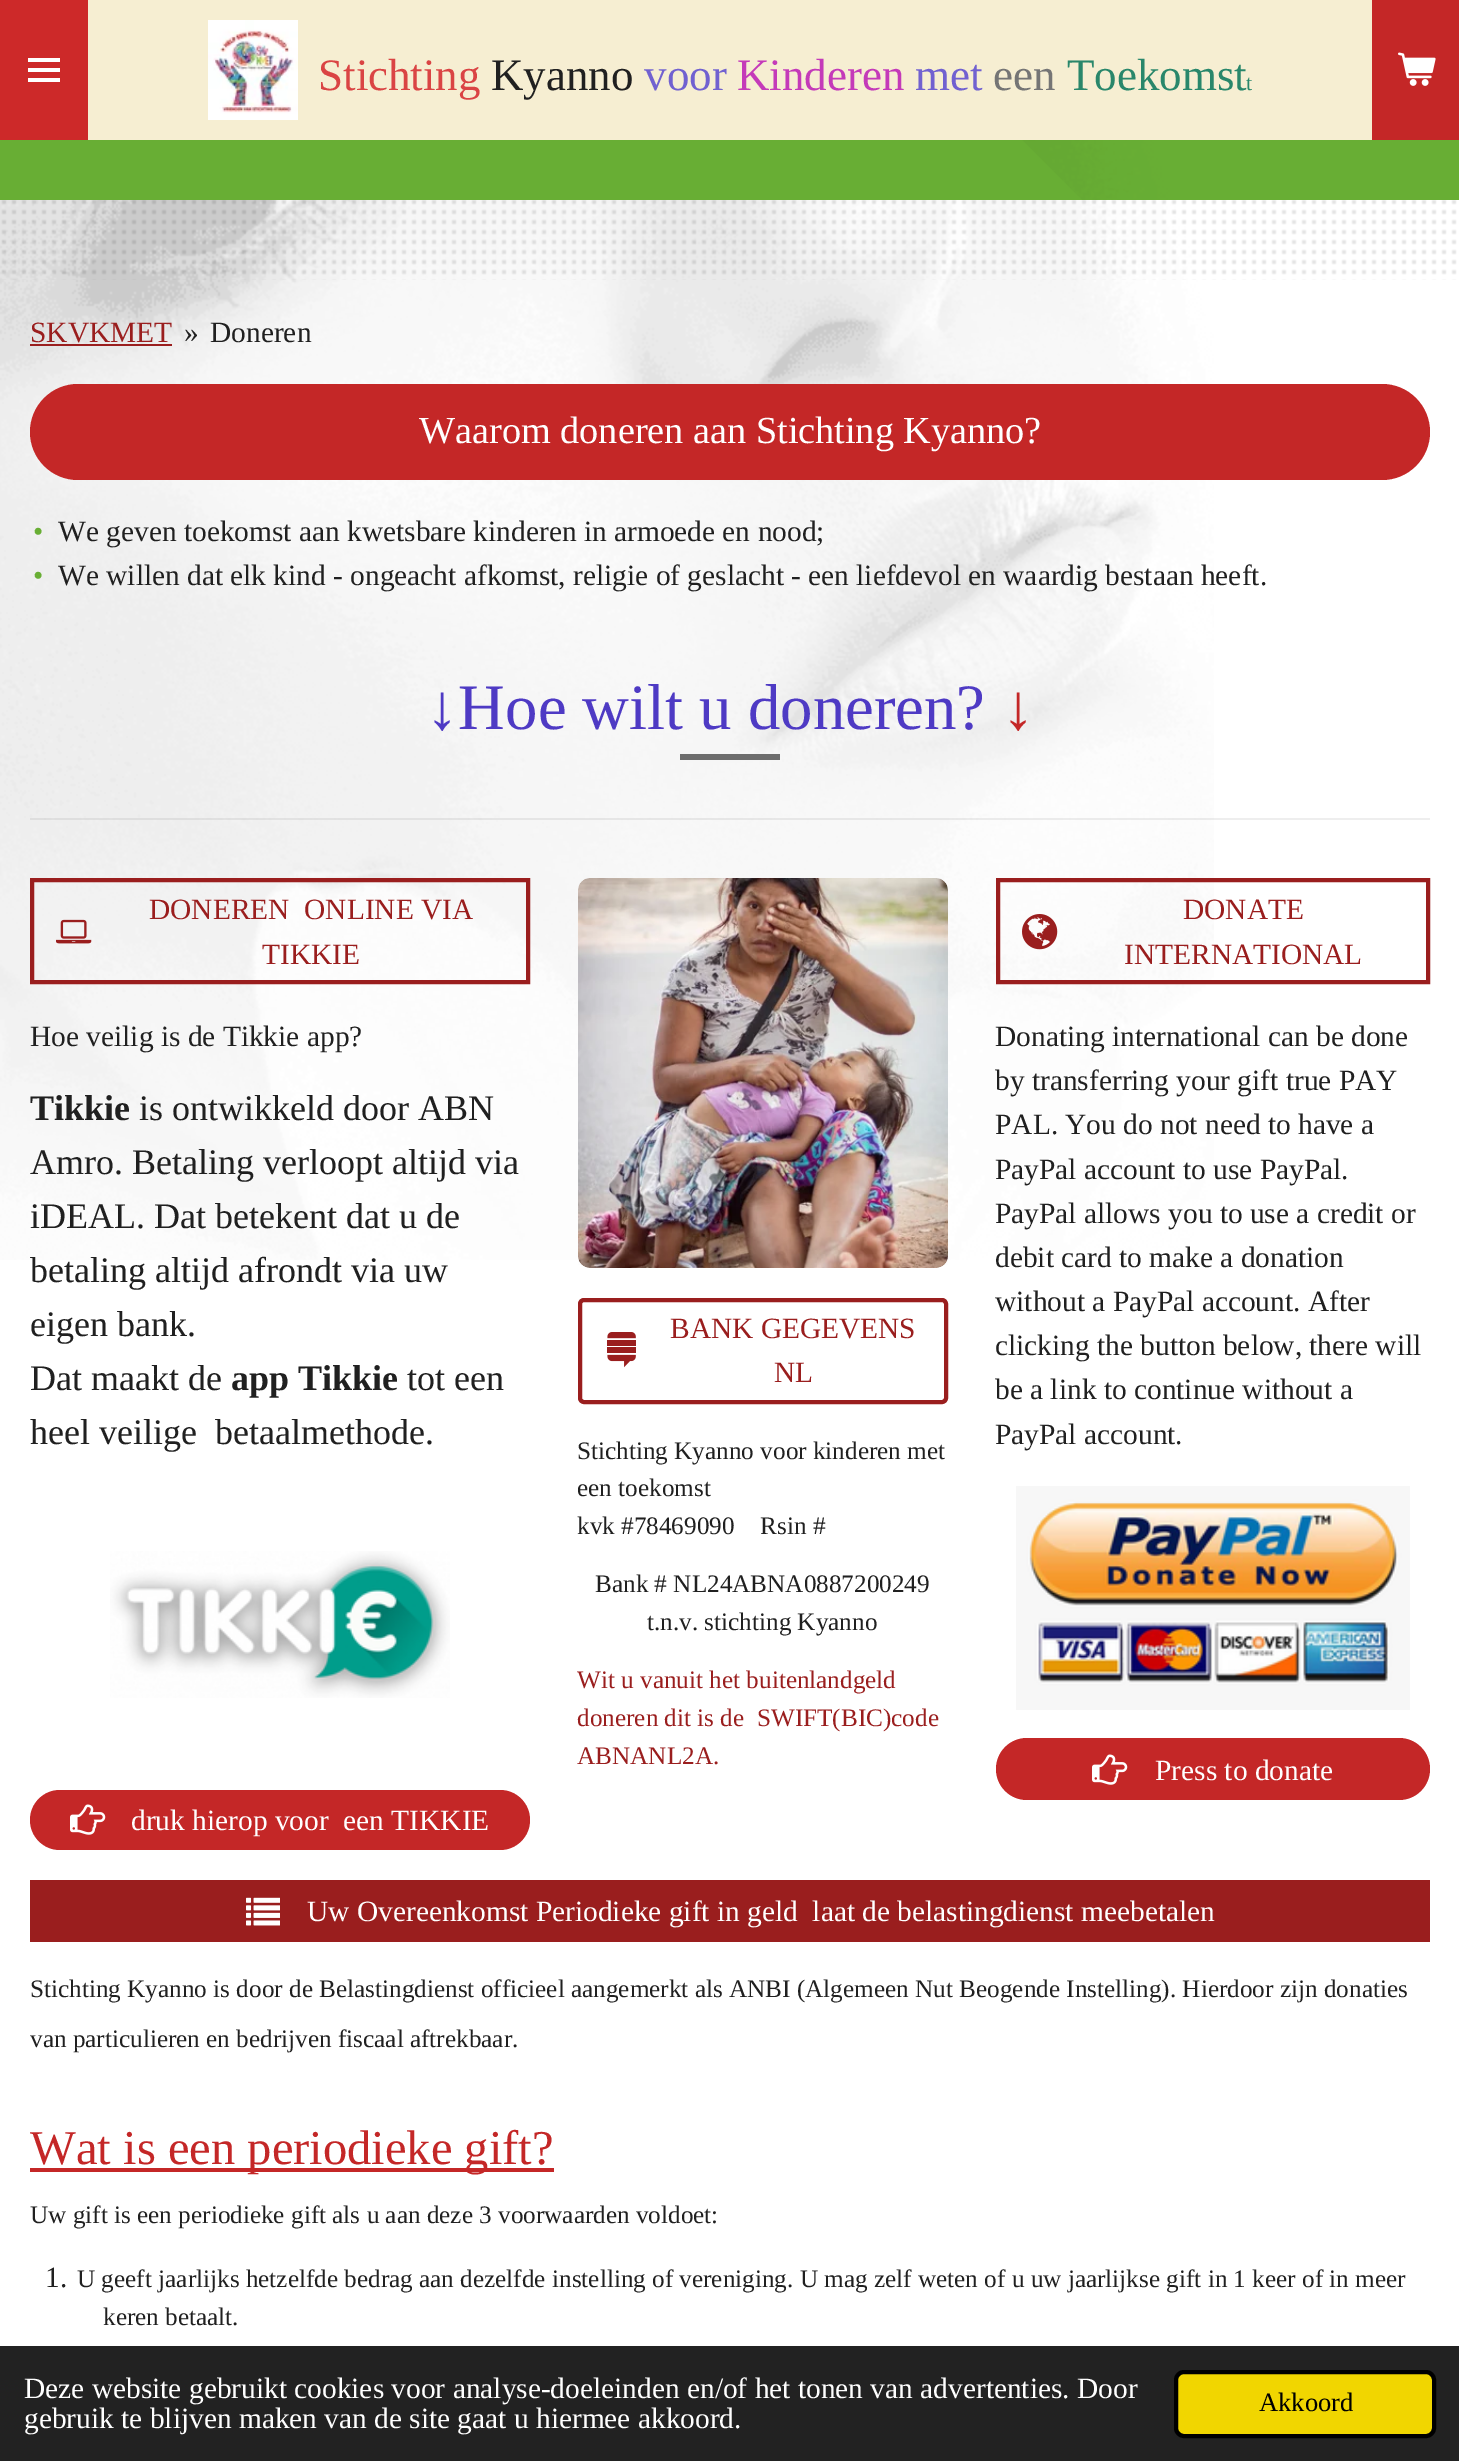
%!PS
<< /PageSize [1459 2461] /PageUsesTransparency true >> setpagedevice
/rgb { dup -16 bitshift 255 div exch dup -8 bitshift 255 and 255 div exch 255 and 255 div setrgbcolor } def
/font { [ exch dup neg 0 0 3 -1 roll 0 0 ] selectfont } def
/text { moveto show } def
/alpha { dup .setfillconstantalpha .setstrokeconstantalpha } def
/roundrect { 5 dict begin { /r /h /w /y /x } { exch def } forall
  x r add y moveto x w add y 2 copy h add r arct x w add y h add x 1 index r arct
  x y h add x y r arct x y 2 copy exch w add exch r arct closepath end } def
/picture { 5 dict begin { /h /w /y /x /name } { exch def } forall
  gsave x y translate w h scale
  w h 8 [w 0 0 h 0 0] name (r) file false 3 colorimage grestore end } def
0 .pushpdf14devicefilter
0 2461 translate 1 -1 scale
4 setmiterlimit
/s1 { /LiberationSerif-Regular 45 font 16#DA4444 rgb } def
/s2 { /LiberationSerif-Regular 45 font 16#202020 rgb } def
/s3 { /LiberationSerif-Regular 45 font 16#7161D0 rgb } def
/s4 { /LiberationSerif-Regular 45 font 16#C43AB9 rgb } def
/s5 { /LiberationSerif-Regular 45 font 16#757575 rgb } def
/s6 { /LiberationSerif-Regular 45 font 16#29876B rgb } def
/s7 { /LiberationSerif-Regular 22 font 16#29876B rgb } def
/s8 { /LiberationSerif-Regular 29.4 font 16#9A1E1E rgb } def
/s9 { /LiberationSerif-Regular 29.4 font 16#202020 rgb } def
/s10 { /LiberationSerif-Regular 38.25 font 16#FFFFFF rgb } def
/s11 { /LiberationSerif-Regular 29.4 font 16#68AE34 rgb } def
/s12 { /LiberationSerif-Regular 64.75 font 16#4E3AC4 rgb } def
/s13 { /LiberationSerif-Regular 64.75 font 16#C42727 rgb } def
/s14 { /LiberationSerif-Bold 36 font 16#202020 rgb } def
/s15 { /LiberationSerif-Regular 36 font 16#202020 rgb } def
/s16 { /LiberationSerif-Regular 29.4 font 16#FFFFFF rgb } def
/s17 { /LiberationSerif-Regular 25.2 font 16#202020 rgb } def
/s18 { /LiberationSerif-Regular 25.2 font 16#9A1E1E rgb } def
/s19 { /LiberationSerif-Regular 48.6 font 16#C42727 rgb } def
/s20 { /LiberationSerif-Regular 26.5 font 16#000000 rgb } def
16#FFFFFF rgb
0 0 1459 2461 rectfill
16#CD2929 rgb
0 0 88 140 rectfill
16#FFFFFF rgb
28 68 32 4 rectfill
28 58 32 4 rectfill
28 78 32 4 rectfill
16#F6EED2 rgb
88 0 1284 140 rectfill
(pic1.raw) 208 20 90 100 picture
s1
(Stichting) 318 90 text
s2
(Kyanno) 491 90 text
s3
(voor) 644 90 text
s4
(Kinderen) 737 90 text
s3
(met) 915 90 text
s5
(een) 993 90 text
s6
(Toekomst) 1067 90 text
s7
(t) 1246 90 text
16#C42727 rgb
1372 0 87 140 rectfill
(pic2.raw) 1398 52 38 34 picture
(pic3.raw) 1 200 1456 80 picture
16#68AE34 rgb
1022 140 437 60 rectfill
(pic4.raw) 0 140 1214 1120 picture
0 140 1022 60 rectfill
1022 200 moveto 1022 140 lineto 1082 200 lineto closepath fill
s8
(SKVKMET) 30 342 text
30 344 142 2 rectfill
s9
(») 184 342 text
(Doneren) 210 342 text
16#C42727 rgb
30 384 1400 96 48 roundrect fill
s10
(Waarom doneren aan Stichting Kyanno?) 419 443 text
s11
(•) 33 541 text
s9
(We geven toekomst aan kwetsbare kinderen in armoede en nood;) 58 541 text
s11
(•) 33 585 text
s9
(We willen dat elk kind - ongeacht afkomst, religie of geslacht - een liefdevol en waardig bestaan heeft.) 58 585 text
s12
(↓Hoe wilt u doneren?) 426 729 text
s13
(↓) 1002 729 text
16#6D6D6D rgb
680 754 100 6 rectfill
0.08 alpha
16#202020 rgb
30 818 1400 2 rectfill
1 alpha
16#9A1E1E rgb
4 setlinewidth
32 880 496 102 rectstroke
(pic5.raw) 56 919 36 25 picture
s8
(DONEREN  ONLINE VIA) 149 919 text
(TIKKIE) 262 964 text
s9
(Hoe veilig is de Tikkie app?) 30 1046 text
s14
(Tikkie) 30 1120 text
s15
(is ontwikkeld door ABN) 139 1120 text
(Amro. Betaling verloopt altijd via) 30 1174 text
(iDEAL. Dat betekent dat u de) 30 1228 text
(betaling altijd afrondt via uw) 30 1282 text
(eigen bank.) 30 1336 text
(Dat maakt de) 30 1390 text
s14
(app Tikkie) 231 1390 text
s15
(tot een) 407 1390 text
(heel veilige) 30 1444 text
(betaalmethode.) 215 1444 text
(pic6.raw) 110 1551 340 147 picture
16#C42727 rgb
30 1790 500 60 30 roundrect fill
(pic7.raw) 70 1804 36 31 picture
s16
(druk hierop voor  een TIKKIE) 131 1830 text
(pic8.raw) 578 878 370 390 picture
16#9A1E1E rgb
580 1300 366 102 4 roundrect stroke
(pic9.raw) 607 1332 29 36 picture
(BANK GEGEVENS) 670 1338 text
(NL) 774 1382 text
s17
(Stichting Kyanno voor kinderen met) 577 1459 text
(een toekomst) 577 1496 text
(kvk #78469090) 577 1534 text
(Rsin #) 760 1534 text
(Bank # NL24ABNA0887200249) 595 1592 text
(t.n.v. stichting Kyanno) 647 1630 text
s18
(Wit u vanuit het buitenlandgeld) 577 1688 text
(doneren dit is de  SWIFT\(BIC\)code) 577 1726 text
(ABNANL2A.) 577 1764 text
998 880 430 102 rectstroke
(pic10.raw) 1022 914 36 36 picture
s8
(DONATE) 1183 919 text
(INTERNATIONAL) 1124 964 text
s9
(Donating international can be done) 995 1046 text
(by transferring your gift true PAY) 995 1090 text
(PAL. You do not need to have a) 995 1134 text
(PayPal account to use PayPal.) 995 1179 text
(PayPal allows you to use a credit or) 995 1223 text
(debit card to make a donation) 995 1267 text
(without a PayPal account. After) 995 1311 text
(clicking the button below, there will) 995 1355 text
(be a link to continue without a) 995 1399 text
(PayPal account.) 995 1444 text
(pic11.raw) 1016 1486 394 224 picture
16#C42727 rgb
996 1738 434 62 31 roundrect fill
(pic7.raw) 1092 1754 36 31 picture
s16
(Press to donate) 1155 1780 text
16#9A1E1E rgb
30 1880 1400 62 rectfill
(pic12.raw) 246 1897 34 29 picture
s16
(Uw Overeenkomst Periodieke gift in geld  laat de belastingdienst meebetalen) 307 1921 text
s17
(Stichting Kyanno is door de Belastingdienst officieel aangemerkt als ANBI \(Algemeen Nut Beogende Instelling\). Hierdoor zijn donaties) 30 1997 text
(van particulieren en bedrijven fiscaal aftrekbaar.) 30 2047 text
16#C42727 rgb
30 2168 524 4 rectfill
s19
(Wat is een periodieke gift?) 30 2164 text
s17
(Uw gift is een periodieke gift als u aan deze 3 voorwaarden voldoet:) 30 2223 text
s9
(1.) 45 2287 text
s17
(U geeft jaarlijks hetzelfde bedrag aan dezelfde instelling of vereniging. U mag zelf weten of u uw jaarlijkse gift in 1 keer of in meer) 77 2287 text
(keren betaalt.) 103 2325 text
16#222222 rgb
0 2346 1459 115 rectfill
s16
(Deze website gebruikt cookies voor analyse-doeleinden en/of het tonen van advertenties. Door) 24 2398 text
(gebruik te blijven maken van de site gaat u hiermee akkoord.) 24 2428 text
16#F1D600 rgb
1176 2372 258 64 8 roundrect gsave fill grestore
16#000000 rgb
stroke
s20
(Akkoord) 1259 2411 text
.poppdf14devicefilter showpage
